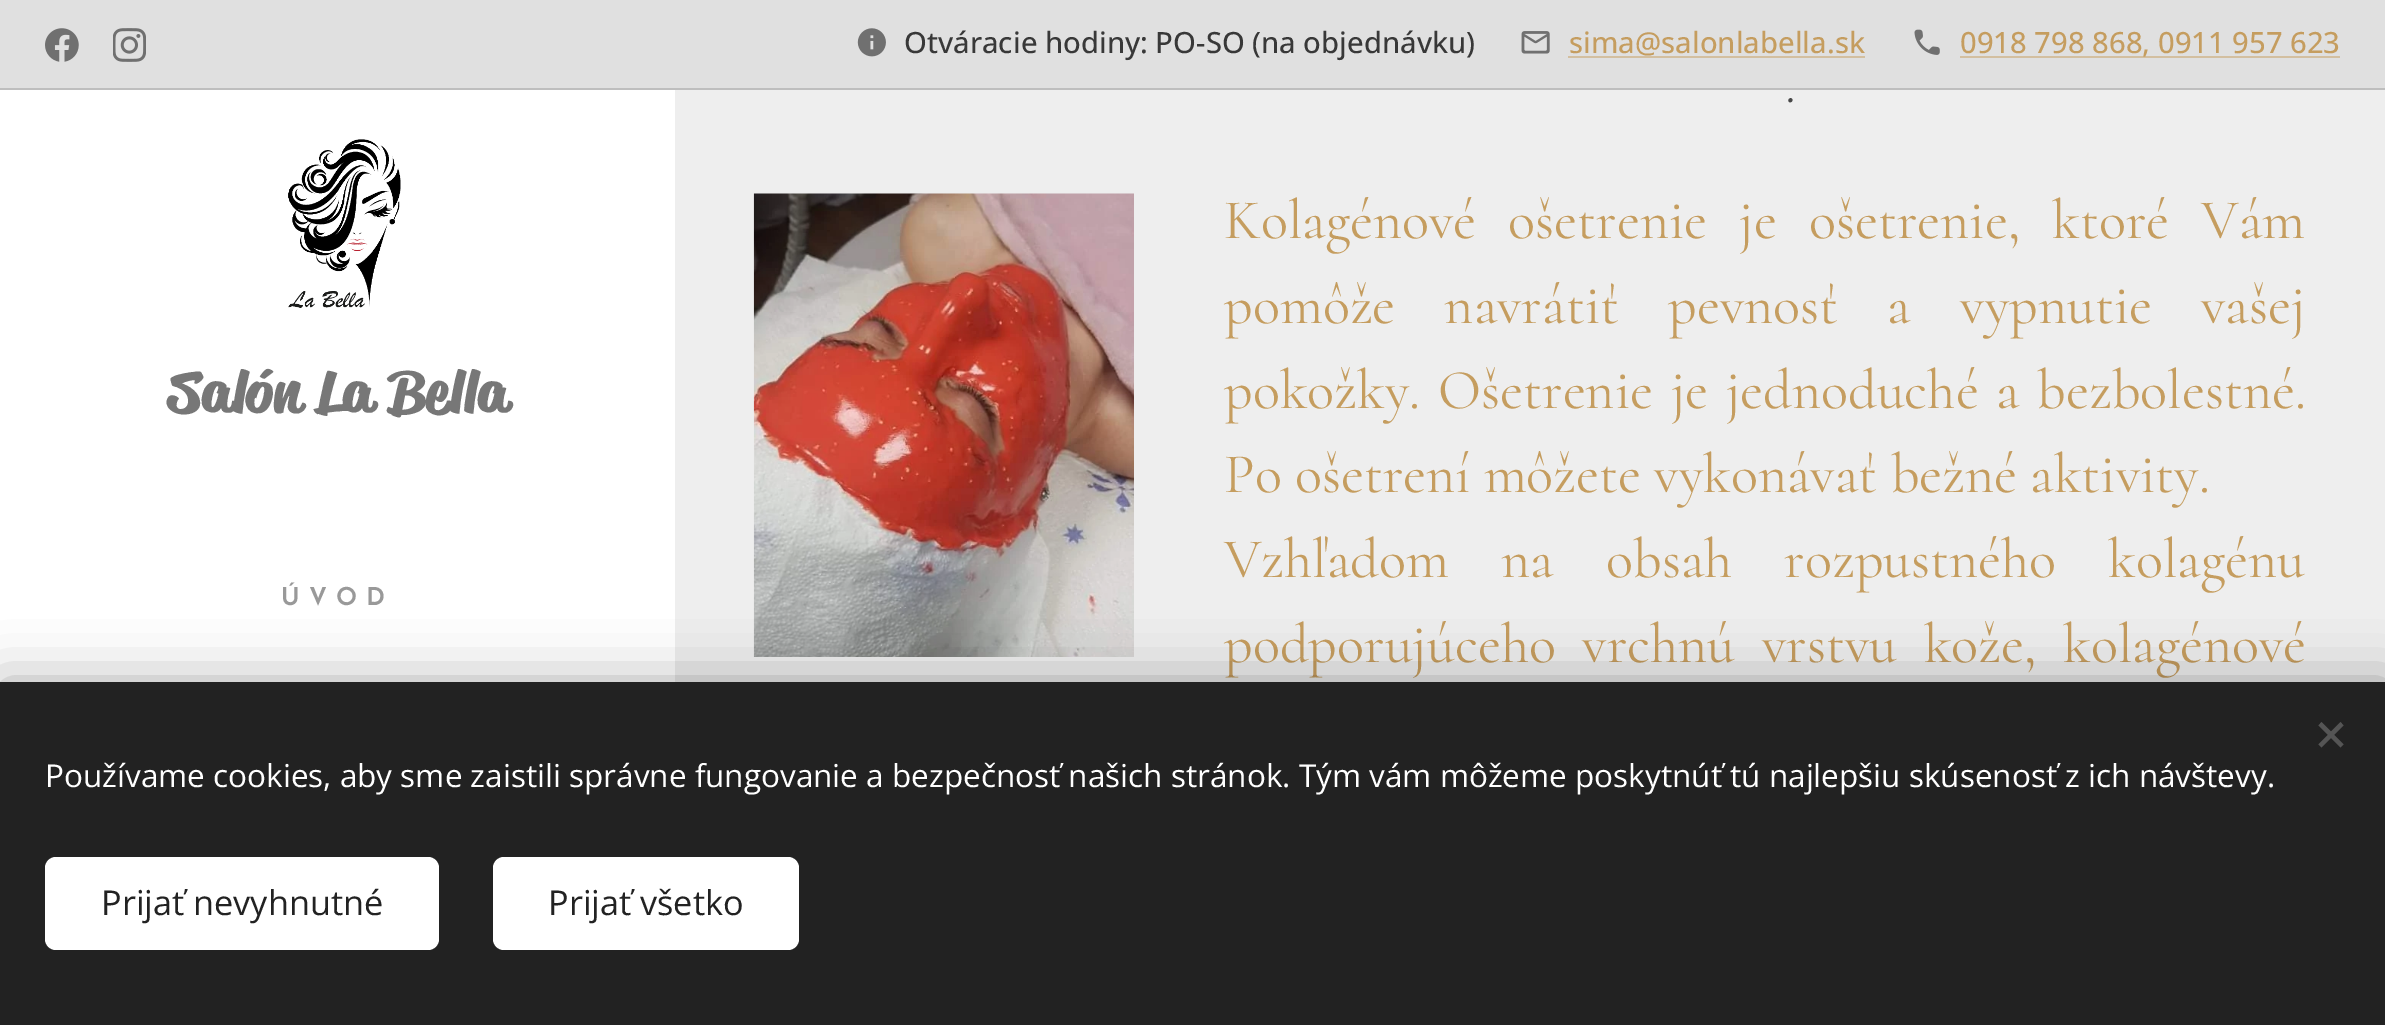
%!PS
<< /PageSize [2385 1025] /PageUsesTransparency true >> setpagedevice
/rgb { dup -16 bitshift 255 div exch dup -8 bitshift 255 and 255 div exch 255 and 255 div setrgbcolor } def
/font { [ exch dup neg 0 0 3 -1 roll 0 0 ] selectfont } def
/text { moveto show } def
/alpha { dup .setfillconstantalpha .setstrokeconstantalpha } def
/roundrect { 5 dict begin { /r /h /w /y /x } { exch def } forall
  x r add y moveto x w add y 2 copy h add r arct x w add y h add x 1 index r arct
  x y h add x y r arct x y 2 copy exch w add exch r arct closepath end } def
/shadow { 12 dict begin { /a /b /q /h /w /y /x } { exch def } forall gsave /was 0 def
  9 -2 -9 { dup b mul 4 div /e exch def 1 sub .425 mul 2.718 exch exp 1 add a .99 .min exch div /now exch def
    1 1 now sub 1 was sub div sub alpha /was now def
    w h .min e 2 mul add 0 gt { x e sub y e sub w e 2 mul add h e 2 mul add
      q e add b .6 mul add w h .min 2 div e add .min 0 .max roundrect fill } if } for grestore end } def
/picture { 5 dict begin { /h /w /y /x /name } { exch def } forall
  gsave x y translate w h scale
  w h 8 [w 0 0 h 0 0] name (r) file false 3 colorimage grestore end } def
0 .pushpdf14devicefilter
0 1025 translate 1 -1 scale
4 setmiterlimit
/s1 { /OpenSans-Medium 29.25 font 16#383838 rgb } def
/s2 { /OpenSans-Medium 29.25 font 16#C59D5F rgb } def
/s3 { /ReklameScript-Bold 56.25 font 16#777777 rgb } def
/s4 { /Merriweather-Light 36 font 16#474747 rgb } def
/s5 { /Cormorant-Regular 56.25 font 16#C59D5F rgb } def
/s6 { /OpenSans-Regular 31.5 font 16#FFFFFF rgb } def
/s7 { /OpenSans-Regular 34.25 font 16#222222 rgb } def
16#FFFFFF rgb
0 0 2385 1025 rectfill
16#E0E0E0 rgb
0 0 2385 88 rectfill
(pic1.raw) 45 28 34 34 picture
(pic2.raw) 113 28 33 34 picture
(pic3.raw) 857 28 29 29 picture
s1
(Otváracie hodiny: PO-SO \(na objednávku\)) 904 53 text
(pic4.raw) 1521 31 29 23 picture
s2
(sima@salonlabella.sk) 1569 53 text
16#D3BFA0 rgb
1568 56 297 2 rectfill
(pic5.raw) 1914 29 26 26 picture
1960 56 380 2 rectfill
s2
(0918 798 868, 0911 957 623) 1960 53 text
16#BEBEBE rgb
0 88 2385 2 rectfill
(pic6.raw) 288 139 113 169 picture
s3
(Salón La Bella) 168 411 text
/JosefinSans-SemiBold 24.75 font
16#999999 rgb
281 605 moveto 9 0 (ÚVOD) ashow
16#EEEEEE rgb
675 90 1710 592 rectfill
s4
(.) 1786 102 text
(pic7.raw) 753 193 381 464 picture
/Cormorant-Regular 56.25 font
16#C59D5F rgb
1224 238 moveto 19 0 32 (Kolagénové ošetrenie je ošetrenie, ktoré Vám) widthshow
1224 323 moveto 36 0 32 (pomôže navrátiť pevnosť a vypnutie vašej) widthshow
(pokožky.) 1224 408 text
1438 408 moveto 4.5 0 32 (Ošetrenie je jednoduché a bezbolestné.) widthshow
(Po ošetrení môžete vykonávať bežné aktivity.) 1224 492 text
1224 577 moveto 39 0 32 (Vzhľadom na obsah rozpustného kolagénu) widthshow
1224 662 moveto 13.5 0 32 (podporujúceho vrchnú vrstvu kože, kolagénové) widthshow
16#000000 rgb
0 682 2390 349 0 28 0.33 shadow
16#222222 rgb
0 682 2385 343 rectfill
16#555555 rgb
2318.5 744.5 moveto 2340.5 722 lineto 2343.5 725.5 lineto 2321.5 747.5 lineto closepath fill
2321.5 722 moveto 2343.5 744.5 lineto 2340.5 747.5 lineto 2318.5 725.5 lineto closepath fill
s6
(Používame cookies, aby sme zaistili správne fungovanie a bezpečnosť našich stránok. Tým vám môžeme poskytnúť tú najlepšiu skúsenosť z ich návštevy.) 45 787 text
45 857 394 93 11 roundrect fill
s7
(Prijať nevyhnutné) 101 915 text
16#FFFFFF rgb
493 857 306 93 11 roundrect fill
s7
(Prijať všetko) 548 915 text
.poppdf14devicefilter showpage
